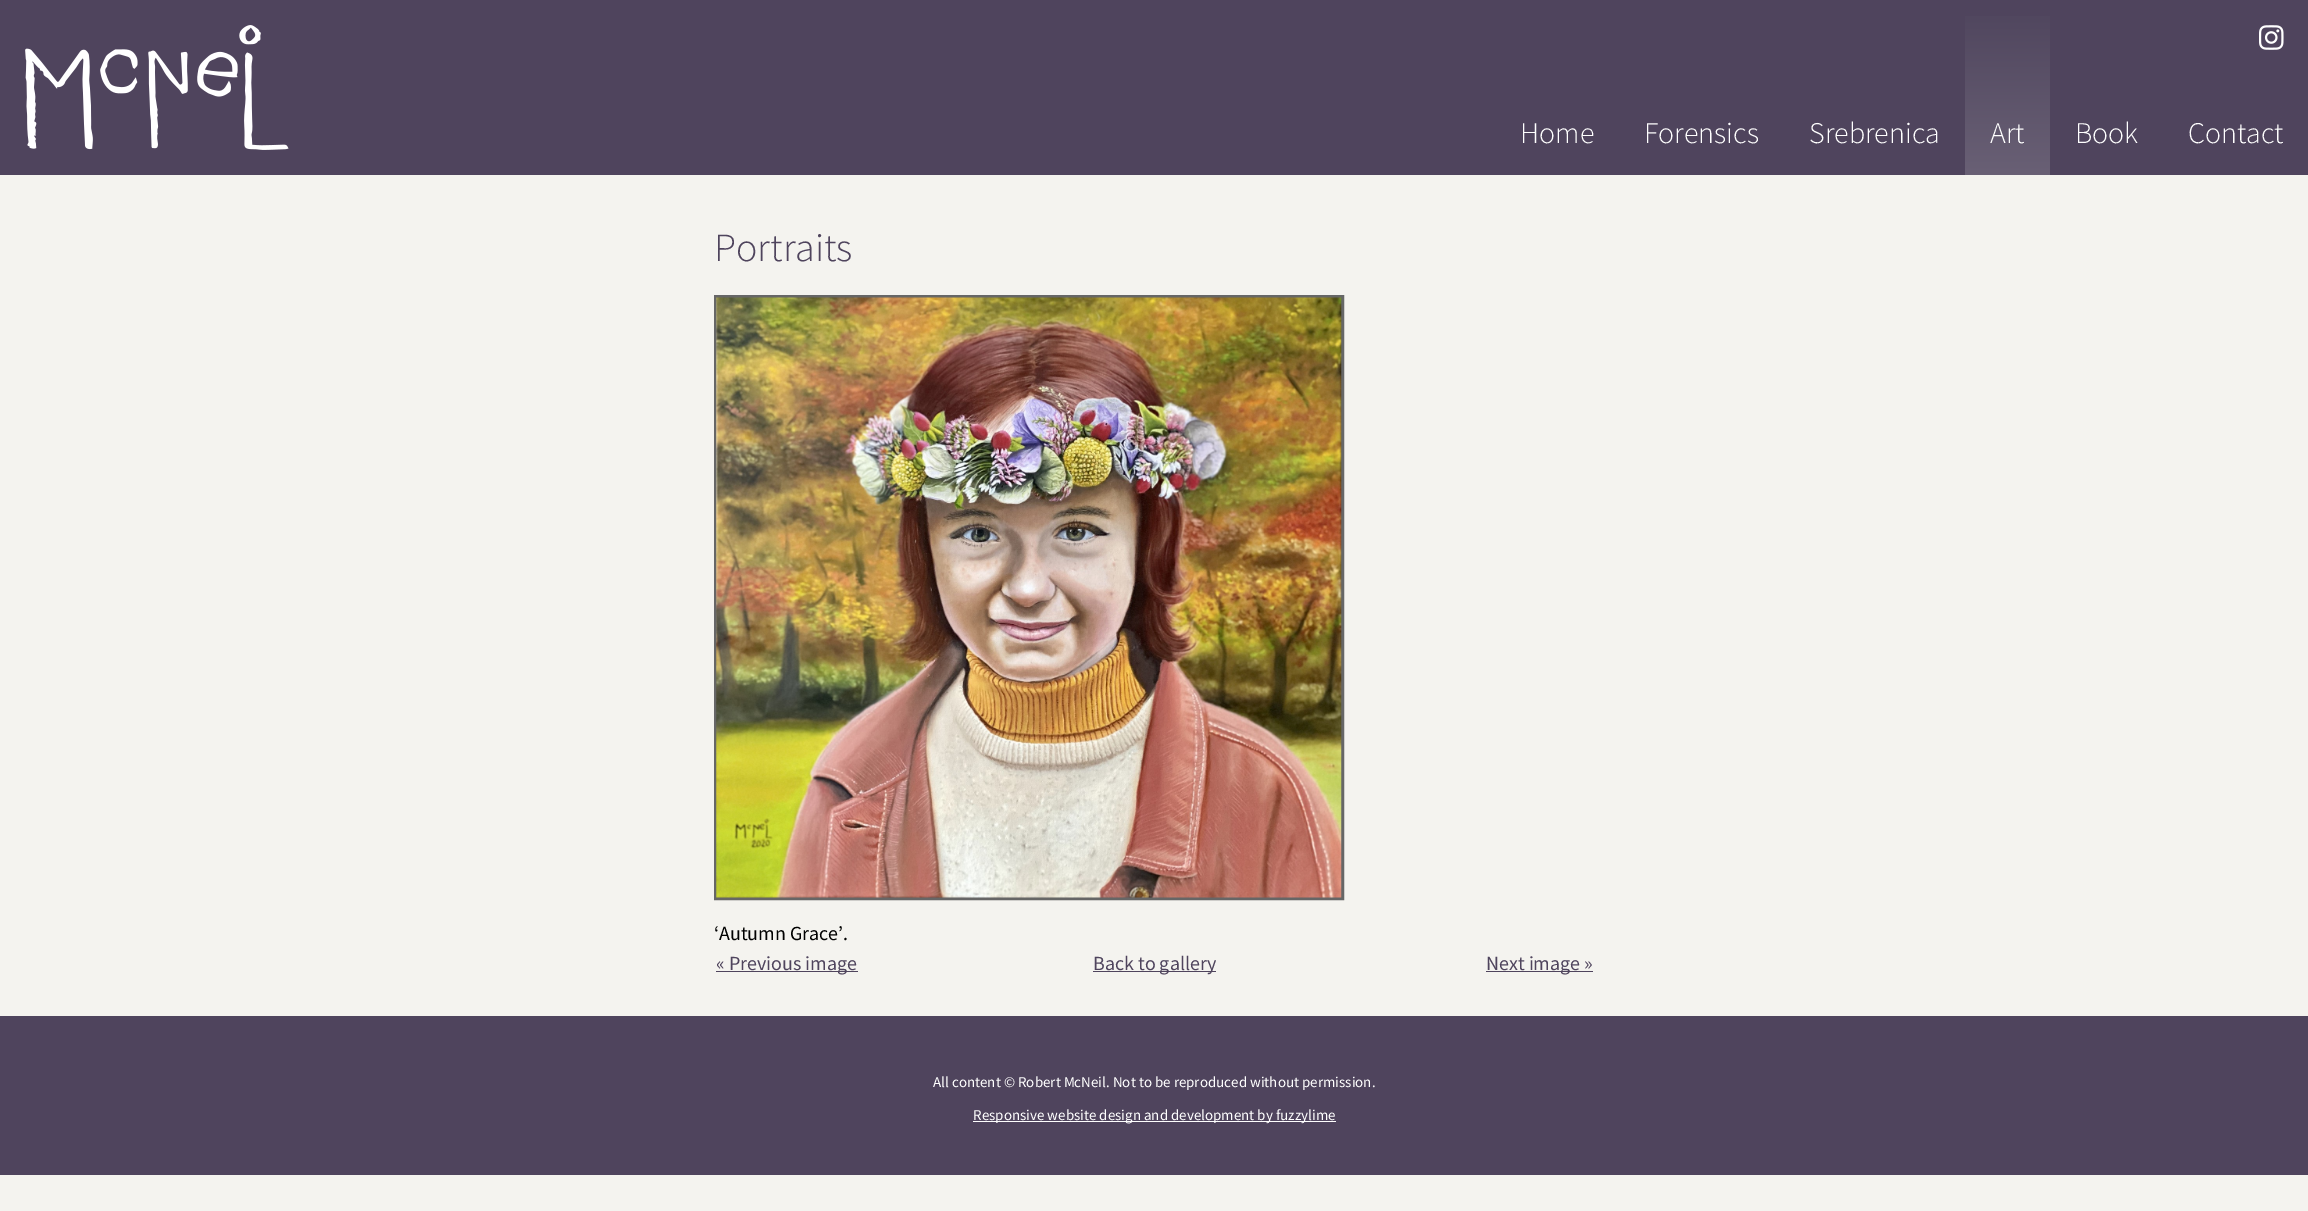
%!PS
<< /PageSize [2308 1211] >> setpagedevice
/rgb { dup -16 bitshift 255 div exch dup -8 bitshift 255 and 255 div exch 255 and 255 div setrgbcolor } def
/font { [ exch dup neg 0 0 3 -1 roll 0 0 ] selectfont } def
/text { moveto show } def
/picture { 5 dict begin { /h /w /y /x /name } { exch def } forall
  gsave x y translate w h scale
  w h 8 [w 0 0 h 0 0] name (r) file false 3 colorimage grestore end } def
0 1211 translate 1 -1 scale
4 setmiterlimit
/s1 { /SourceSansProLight-Light 30 font 16#FFFFFF rgb } def
/s2 { /SourceSansProLight-Light 40 font 16#4F445D rgb } def
/s3 { /SourceSansPro-Regular 20 font 16#000000 rgb } def
/s4 { /SourceSansPro-Regular 20 font 16#4F445D rgb } def
/s5 { /SourceSansPro-Regular 15 font 16#FFFFFF rgb } def
16#F4F3EF rgb
0 0 2308 1211 rectfill
16#4F445D rgb
0 0 2308 175 rectfill
(pic1.raw) 25 25 264 125 picture
(pic2.raw) 2259 25 25 25 picture
s1
(Home) 1520 143 text
(Forensics) 1644 143 text
(Srebrenica) 1809 143 text
gsave 1965 16 moveto 2050 16 lineto 2050 175 lineto 1965 175 lineto closepath clip newpath
<< /ShadingType 2 /ColorSpace /DeviceRGB /Coords [2008 0 2008 175] /Extend [true true] /Function << /FunctionType 2 /Domain [0 1] /C0 [0.31 0.267 0.365] /C1 [0.412 0.376 0.459] /N 1 >> >> shfill grestore
(Art) 1990 143 text
(Book) 2075 143 text
(Contact) 2188 143 text
s2
(Portraits) 714 261 text
16#666666 rgb
3 setlinewidth
715.5 296.5 627 602 rectstroke
(pic3.raw) 716 297 626 601 picture
s3
(‘Autumn Grace’.) 714 940 text
16#4F445D rgb
716 971 142 1 rectfill
(« Previous image) 716 970 text
1093 971 123 1 rectfill
(Back to gallery) 1093 970 text
1486 971 107 1 rectfill
(Next image ») 1486 970 text
0 1016 2308 159 rectfill
s5
(All content © Robert McNeil. Not to be reproduced without permission.) 933 1087 text
973 1121 363 1 rectfill
(Responsive website design and development by fuzzylime) 973 1120 text
showpage
